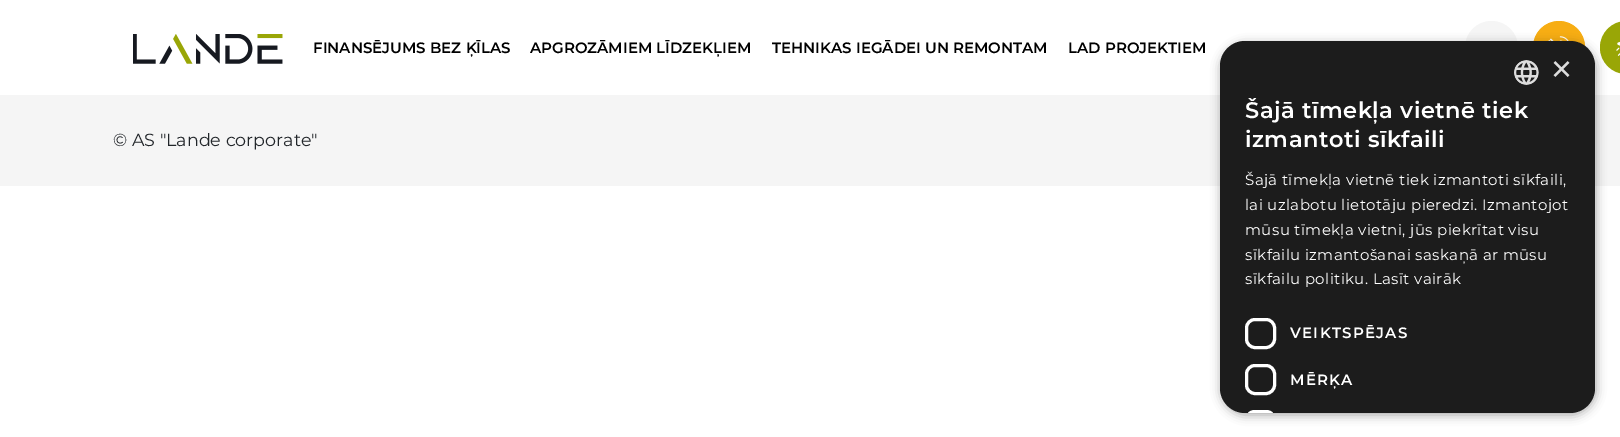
%!PS
<< /PageSize [1620 437] /PageUsesTransparency true >> setpagedevice
/rgb { dup -16 bitshift 255 div exch dup -8 bitshift 255 and 255 div exch 255 and 255 div setrgbcolor } def
/font { [ exch dup neg 0 0 3 -1 roll 0 0 ] selectfont } def
/text { moveto show } def
/alpha { dup .setfillconstantalpha .setstrokeconstantalpha } def
/circle { newpath 0 360 arc closepath } def
/roundrect { 5 dict begin { /r /h /w /y /x } { exch def } forall
  x r add y moveto x w add y 2 copy h add r arct x w add y h add x 1 index r arct
  x y h add x y r arct x y 2 copy exch w add exch r arct closepath end } def
/shadow { 12 dict begin { /a /b /q /h /w /y /x } { exch def } forall gsave /was 0 def
  9 -2 -9 { dup b mul 4 div /e exch def 1 sub .425 mul 2.718 exch exp 1 add a .99 .min exch div /now exch def
    1 1 now sub 1 was sub div sub alpha /was now def
    w h .min e 2 mul add 0 gt { x e sub y e sub w e 2 mul add h e 2 mul add
      q e add b .6 mul add w h .min 2 div e add .min 0 .max roundrect fill } if } for grestore end } def
/picture { 5 dict begin { /h /w /y /x /name } { exch def } forall
  gsave x y translate w h scale
  w h 8 [w 0 0 h 0 0] name (r) file false 3 colorimage grestore end } def
0 .pushpdf14devicefilter
0 437 translate 1 -1 scale
4 setmiterlimit
/s1 { /Montserrat-SemiBold 15 font 16#000000 rgb } def
/s2 { /Montserrat-Regular 17.5 font 16#212529 rgb } def
/s3 { /LiberationSans-Regular 36 font 16#DDDDDD rgb } def
16#FFFFFF rgb
0 0 1620 437 rectfill
(pic1.raw) 133 34 150 30 picture
s1
(FINANSĒJUMS BEZ ĶĪLAS) 313 53 text
(APGROZĀMIEM LĪDZEKĻIEM) 530 53 text
(TEHNIKAS IEGĀDEI UN REMONTAM) 772 53 text
(LAD PROJEKTIEM) 1068 53 text
16#F5F5F5 rgb
1491.5 47.5 26 circle gsave fill grestore
stroke
16#F7AD13 rgb
1533.5 21.5 51 52 25.5 roundrect gsave fill grestore
stroke
(pic2.raw) 1548 36 21 5 picture
16#99A606 rgb
1600.5 21.5 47 52 26 roundrect gsave fill grestore
stroke
(pic3.raw) 1616 41 4 15 picture
16#F5F5F5 rgb
0 95 1620 91 rectfill
s2
(© AS "Lande corporate") 113 146 text
16#000000 rgb
1221 44 375 371 25 5 0.35 shadow
16#1C1C1C rgb
1220 41 375 372 25 roundrect fill
(pic4.raw) 1514 60 25 25 picture
s3
(×) 1551 81 text
/Montserrat-SemiBold 22.5 font
16#FFFFFF rgb
1245 118 moveto 0.5 0 (Šajā tīmekļa vietnē tiek) ashow
1245 147 moveto 0.5 0 (izmantoti sīkfaili) ashow
/Montserrat-Regular 15 font
1245 185 moveto 0.4 0 (Šajā tīmekļa vietnē tiek izmantoti sīkfaili,) ashow
1245 210 moveto 0.4 0 (lai uzlabotu lietotāju pieredzi. Izmantojot) ashow
1245 235 moveto 0.4 0 (mūsu tīmekļa vietni, jūs piekrītat visu) ashow
1245 260 moveto 0.4 0 (sīkfailu izmantošanai saskaņā ar mūsu) ashow
1245 284 moveto 0.4 0 (sīkfailu politiku. Lasīt vairāk) ashow
3 setlinewidth
1246.5 319.5 28 28 8.5 roundrect stroke
/Montserrat-SemiBold 15 font
1290 338 moveto 1.25 0 (VEIKTSPĒJAS) ashow
1246.5 365.5 28 28 8.5 roundrect stroke
1290 385 moveto 1.25 0 (MĒRĶA) ashow
1255 410 moveto 1252 410 1249.5 411 1248 413 curveto 1273 413 lineto 1271.5 411 1269 410 1266 410 curveto closepath fill
.poppdf14devicefilter showpage
